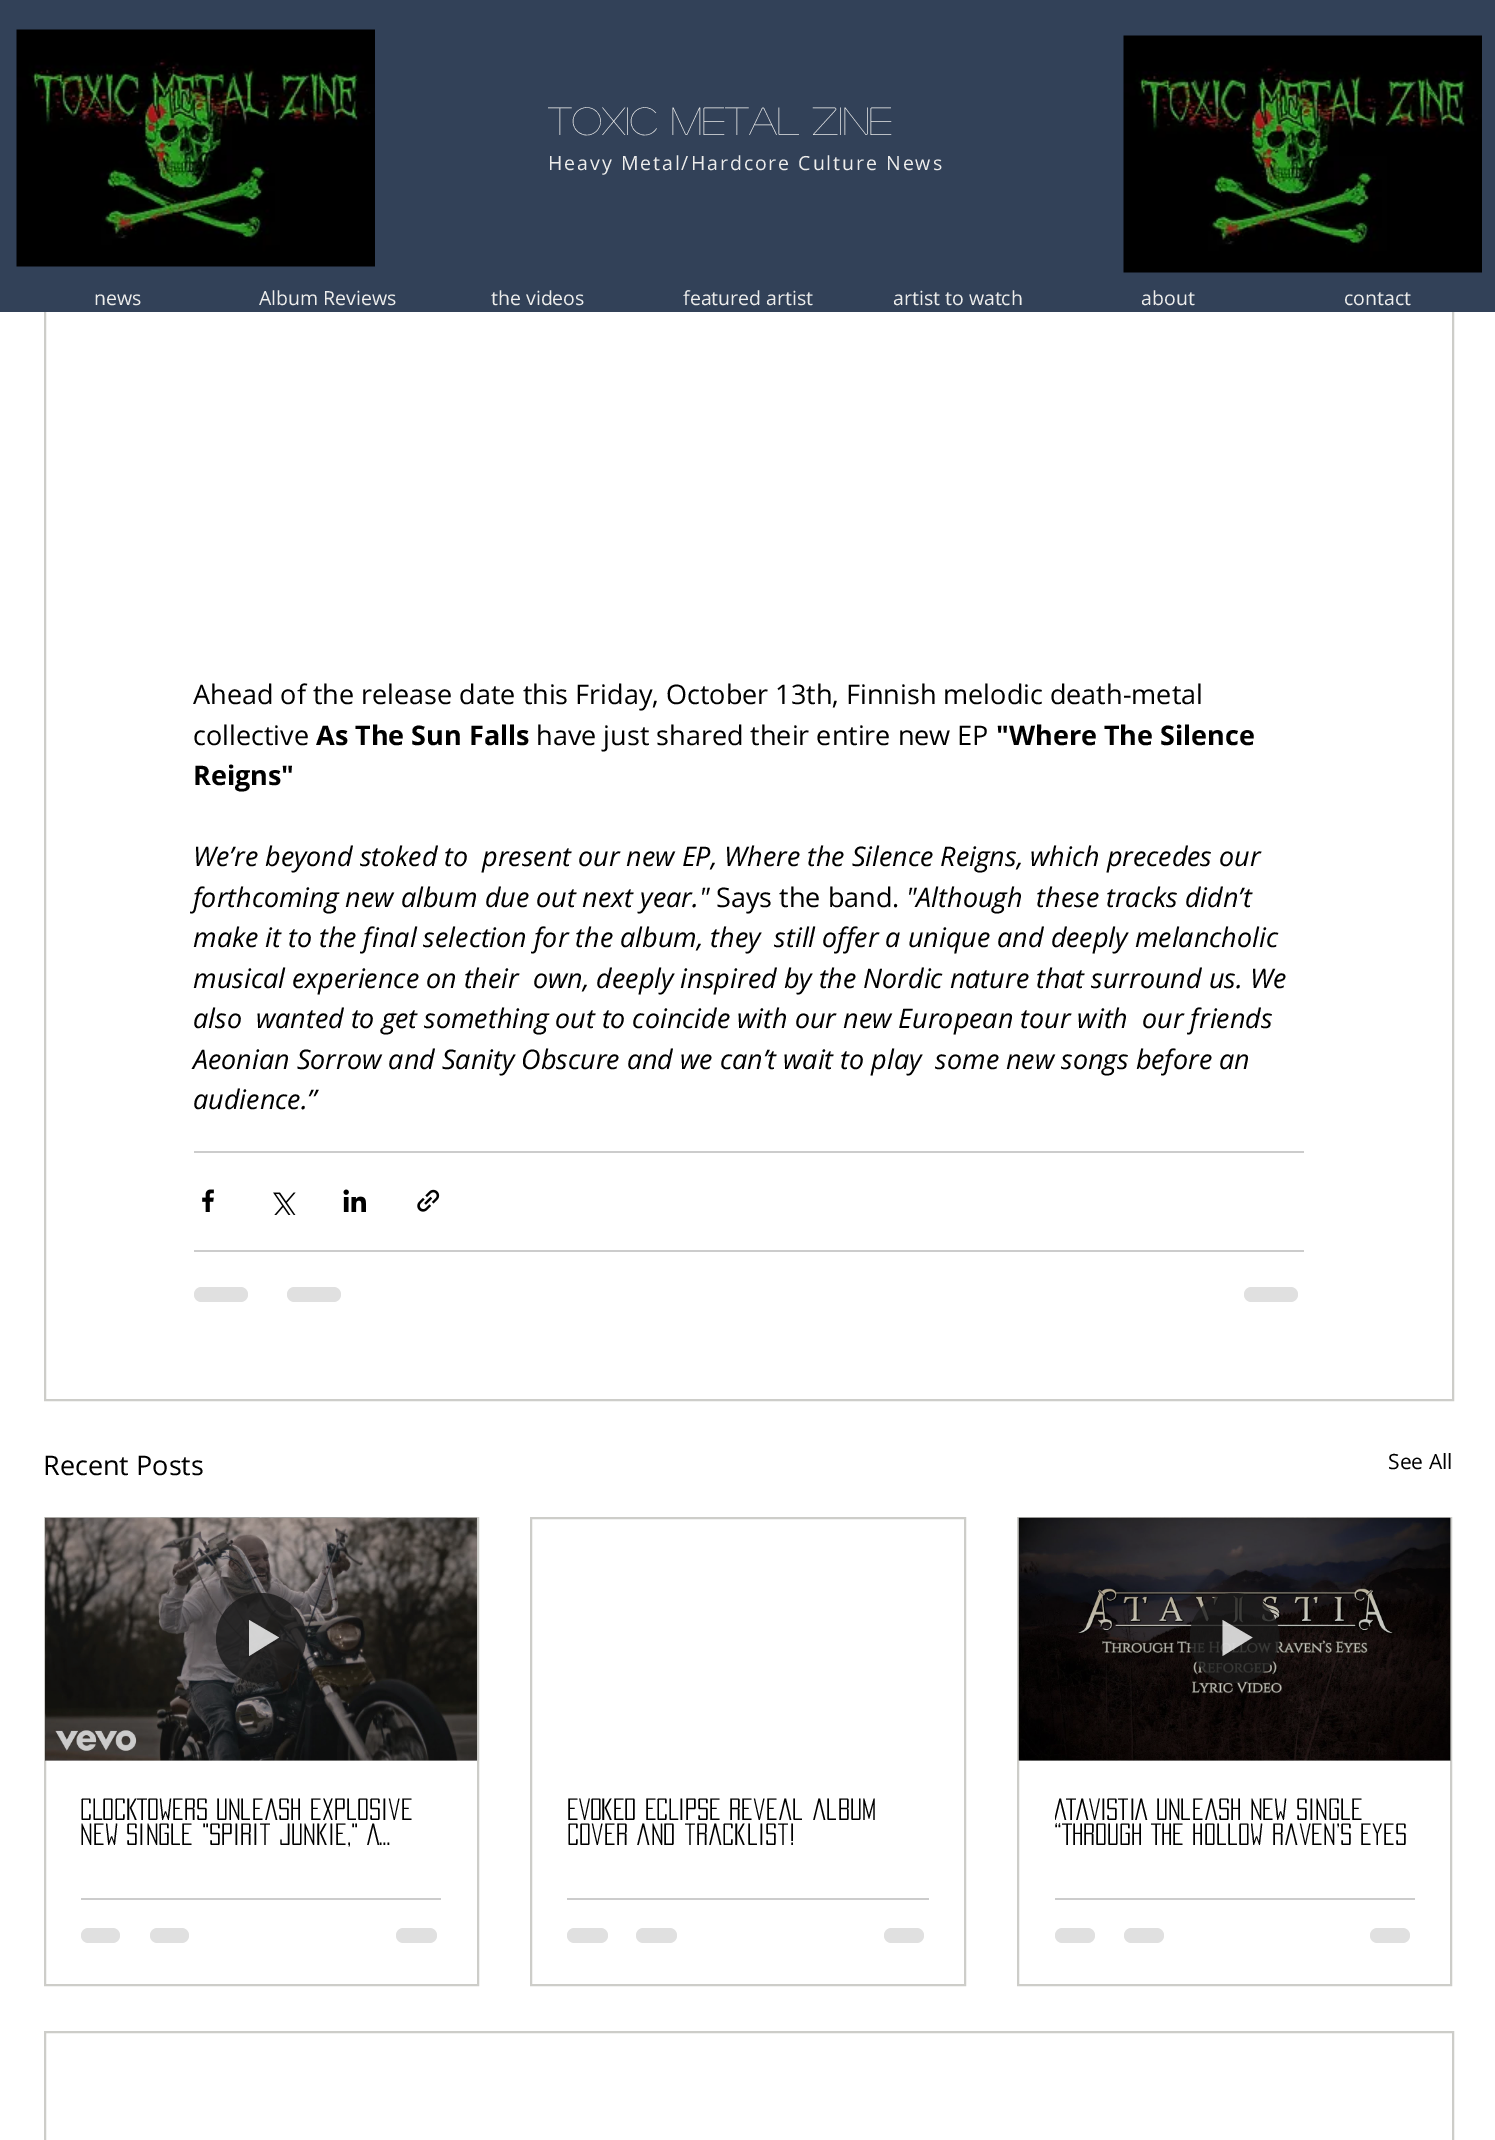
%!PS
<< /PageSize [1495 2140] /PageUsesTransparency true >> setpagedevice
/rgb { dup -16 bitshift 255 div exch dup -8 bitshift 255 and 255 div exch 255 and 255 div setrgbcolor } def
/font { [ exch dup neg 0 0 3 -1 roll 0 0 ] selectfont } def
/text { moveto show } def
/alpha { dup .setfillconstantalpha .setstrokeconstantalpha } def
/circle { newpath 0 360 arc closepath } def
/roundrect { 5 dict begin { /r /h /w /y /x } { exch def } forall
  x r add y moveto x w add y 2 copy h add r arct x w add y h add x 1 index r arct
  x y h add x y r arct x y 2 copy exch w add exch r arct closepath end } def
/picture { 5 dict begin { /h /w /y /x /name } { exch def } forall
  gsave x y translate w h scale
  w h 8 [w 0 0 h 0 0] name (r) file false 3 colorimage grestore end } def
0 .pushpdf14devicefilter
0 2140 translate 1 -1 scale
4 setmiterlimit
/s1 { /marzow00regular-Regular 39 font 16#EDEDEC rgb } def
/s2 { /OpenSans-Regular 19.5 font 16#EDEDEC rgb } def
/s3 { /OpenSans-Regular 27 font 16#000000 rgb } def
/s4 { /OpenSans-Bold 27 font 16#000000 rgb } def
/s5 { /OpenSans-Italic 27 font 16#000000 rgb } def
/s6 { /OpenSans-Regular 21 font 16#000000 rgb } def
/s7 { /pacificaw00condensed-Regular 27 font 16#000000 rgb } def
16#FFFFFF rgb
0 0 1495 2140 rectfill
16#CDCDC9 rgb
2 setlinewidth
45 -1 1408 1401 rectstroke
16#324158 rgb
0 0 1495 312 rectfill
(pic1.raw) 16 29 359 238 picture
s1
(Toxic Metal Zine) 548 135 text
/OpenSans-Regular 19.5 font
548 170 moveto 1.95 0 (Heavy Metal/Hardcore Culture News) ashow
(pic1.raw) 1123 35 359 238 picture
(news) 94 305 text
(Album Reviews) 259 305 text
(the videos) 491 305 text
(featured artist) 683 305 text
(artist to watch) 893 305 text
(about) 1141 305 text
(contact) 1344 305 text
s3
(Ahead of the release date this Friday, October 13th, Finnish melodic death-metal) 193 704 text
(collective) 193 745 text
s4
(As The Sun Falls) 316 745 text
s3
(have just shared their entire new EP) 536 745 text
s4
("Where The Silence) 996 745 text
(Reigns") 193 785 text
s5
(We’re beyond stoked to  present our new EP, Where the Silence Reigns, which precedes our) 193 866 text
(forthcoming new album due out next year.") 193 907 text
s3
(Says the band.) 716 907 text
s5
("Although  these tracks didn’t) 906 907 text
(make it to the final selection for the album, they  still offer a unique and deeply melancholic) 193 947 text
(musical experience on their  own, deeply inspired by the Nordic nature that surround us. We) 193 988 text
(also  wanted to get something out to coincide with our new European tour with  our friends) 193 1028 text
(Aeonian Sorrow and Sanity Obscure and we can’t wait to play  some new songs before an) 193 1069 text
(audience.”) 193 1109 text
16#CCCCCC rgb
194 1151 1110 2 rectfill
(pic2.raw) 202 1189 12 23 picture
(pic3.raw) 273 1192 23 23 picture
(pic4.raw) 343 1189 23 23 picture
(pic5.raw) 417 1189 23 23 picture
194 1250 1110 2 rectfill
16#E0E0E0 rgb
194 1287 54 15 7.5 roundrect fill
287 1287 54 15 7.5 roundrect fill
1244 1287 54 15 7.5 roundrect fill
s3
(Recent Posts) 43 1475 text
s6
(See All) 1388 1469 text
16#CDCDC9 rgb
45 1518 433 467 rectstroke
(pic6.raw) 45 1517 432 244 picture
0.2 alpha
16#000000 rgb
45 1518 432 243 rectfill
0.8 alpha
16#1A1A1A rgb
261 1638 45 circle fill
16#FFFFFF rgb
249 1620 moveto 249 1656 lineto 279 1637.5 lineto closepath fill
1 alpha
s7
(CLOCKTOWERS Unleash Explosive) 80 1820 text
(New Single "Spirit Junkie," A…) 80 1845 text
16#CCCCCC rgb
81 1898 360 2 rectfill
16#E0E0E0 rgb
81 1928 39 15 7.5 roundrect fill
150 1928 39 15 7.5 roundrect fill
396 1928 41 15 7.5 roundrect fill
16#CDCDC9 rgb
531 1518 434 467 rectstroke
s7
(EVOKED ECLIPSE reveal album) 567 1820 text
(cover and tracklist!) 567 1845 text
16#CCCCCC rgb
567 1898 362 2 rectfill
16#E0E0E0 rgb
567 1928 41 15 7.5 roundrect fill
636 1928 41 15 7.5 roundrect fill
884 1928 40 15 7.5 roundrect fill
16#CDCDC9 rgb
1018 1518 433 467 rectstroke
(pic7.raw) 1018 1517 433 244 picture
0.2 alpha
16#000000 rgb
1019 1518 432 243 rectfill
gsave
1190 1593 90 90 rectclip
0.8 alpha
16#1A1A1A rgb
1234.5 1638 45 circle fill
grestore
0.8 alpha
16#FFFFFF rgb
1222.5 1620 moveto 1222.5 1656 lineto 1252.5 1637.5 lineto closepath fill
gsave
1055 1797 360 51 rectclip
1 alpha
s7
(ATAVISTIA Unleash New Single) 1054 1820 text
grestore
1 alpha
s7
(“Through The Hollow Raven’s Eyes) 1054 1845 text
16#CCCCCC rgb
1055 1898 360 2 rectfill
16#E0E0E0 rgb
1055 1928 40 15 7.5 roundrect fill
1124 1928 40 15 7.5 roundrect fill
1370 1928 40 15 7.5 roundrect fill
16#CDCDC9 rgb
45 2032 1408 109 rectstroke
.poppdf14devicefilter showpage
